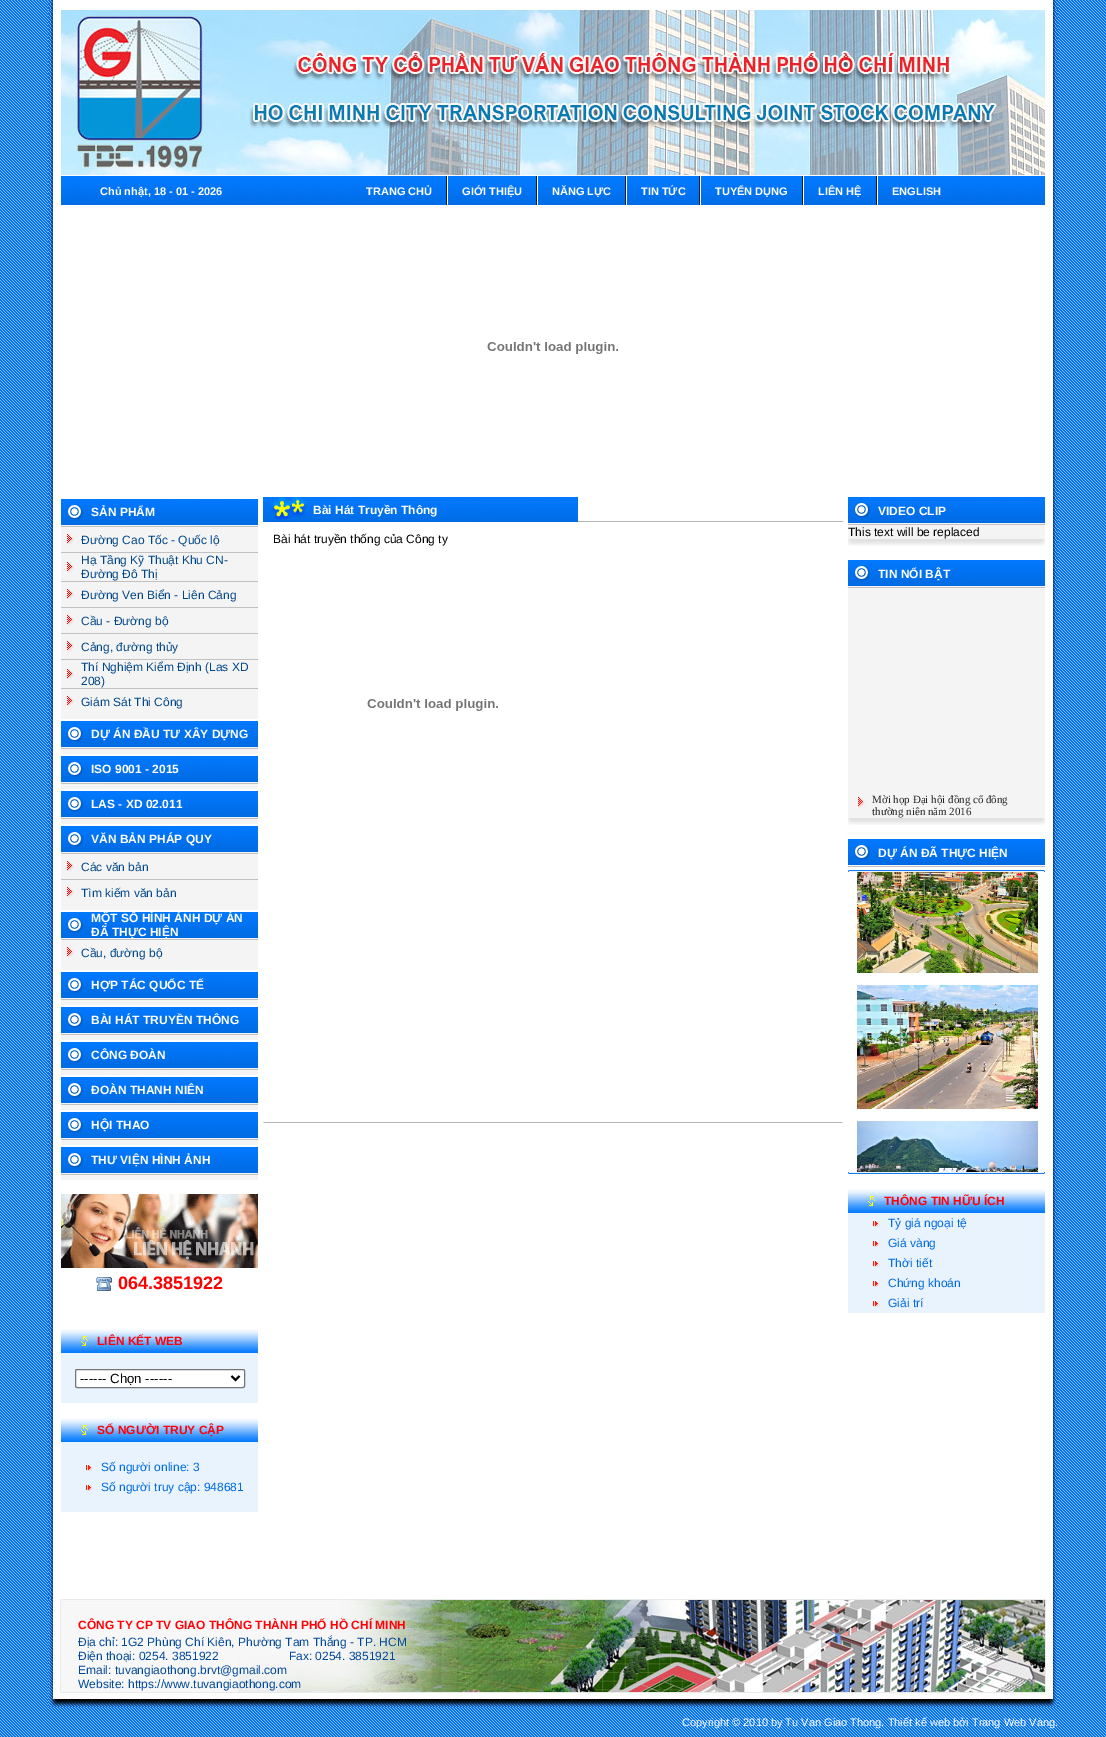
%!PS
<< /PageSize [1106 1737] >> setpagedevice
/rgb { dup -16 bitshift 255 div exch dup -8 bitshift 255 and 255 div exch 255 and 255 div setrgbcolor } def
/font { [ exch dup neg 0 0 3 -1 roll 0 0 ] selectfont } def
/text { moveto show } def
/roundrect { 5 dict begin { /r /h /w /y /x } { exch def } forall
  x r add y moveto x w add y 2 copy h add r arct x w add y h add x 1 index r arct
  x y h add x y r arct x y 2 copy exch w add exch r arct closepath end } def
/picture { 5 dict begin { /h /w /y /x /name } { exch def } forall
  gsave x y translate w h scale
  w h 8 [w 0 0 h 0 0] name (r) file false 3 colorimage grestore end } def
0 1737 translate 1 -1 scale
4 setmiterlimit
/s1 { /LiberationSans-Bold 11 font 16#FFFFFF rgb } def
/s2 { /LiberationSans-Bold 12 font 16#FFFFFF rgb } def
/s3 { /LiberationSans-Regular 12 font 16#004789 rgb } def
/s4 { /LiberationSans-Bold 18 font 16#FF0000 rgb } def
/s5 { /LiberationSans-Bold 12 font 16#FF0208 rgb } def
/s6 { /LiberationSans-Regular 13.25 font 16#000000 rgb } def
/s7 { /LiberationSans-Regular 12 font 16#0069E0 rgb } def
/s8 { /LiberationSans-Regular 12 font 16#000000 rgb } def
/s9 { /LiberationSerif-Regular 11 font 16#262626 rgb } def
/s10 { /LiberationSans-Regular 12 font 16#00489A rgb } def
/s11 { /LiberationSans-Regular 11 font 16#FFFFFF rgb } def
16#FFFFFF rgb
0 0 1106 1737 rectfill
(pic1.raw) 0 0 1106 1737 picture
(pic2.raw) 48 0 1010 10 picture
(pic3.raw) 48 10 1010 1589 picture
(pic4.raw) 61 10 984 165 picture
(pic5.raw) 61 176 984 29 picture
s1
(Chủ nhật, 18 - 01 - 2026) 100 195 text
(TRANG CHỦ) 366 195 text
(pic6.raw) 446 176 2 29 picture
(GIỚI THIỆU) 462 195 text
(pic6.raw) 536 176 2 29 picture
(NĂNG LỰC) 552 195 text
(pic6.raw) 625 176 2 29 picture
(TIN TỨC) 641 195 text
(pic6.raw) 699 176 2 29 picture
(TUYỂN DỤNG) 715 195 text
(pic6.raw) 802 176 2 29 picture
(LIÊN HỆ) 818 195 text
(pic6.raw) 876 176 2 29 picture
(ENGLISH) 892 195 text
(pic7.raw) 487 342 131 12 picture
16#F5F4F4 rgb
61 527 197 653 rectfill
(pic8.raw) 61 497 197 30 picture
s2
(SẢN PHẨM) 91 516 text
(pic9.raw) 67 534 7 11 picture
s3
(Đường Cao Tốc - Quốc lộ) 81 544 text
16#C1C1C1 rgb
61 552 197 1 rectfill
(pic9.raw) 67 562 7 11 picture
s3
(Hạ Tầng Kỹ Thuật Khu CN-) 81 564 text
(Đường Đô Thị) 81 578 text
16#C1C1C1 rgb
61 581 197 1 rectfill
(pic9.raw) 67 589 7 11 picture
s3
(Đường Ven Biển - Liên Cảng) 81 599 text
16#C1C1C1 rgb
61 607 197 1 rectfill
(pic9.raw) 67 615 7 11 picture
s3
(Cầu - Đường bộ) 81 625 text
16#C1C1C1 rgb
61 633 197 1 rectfill
(pic9.raw) 67 641 7 11 picture
s3
(Cảng, đường thủy) 81 651 text
16#C1C1C1 rgb
61 659 197 1 rectfill
(pic9.raw) 67 669 7 11 picture
s3
(Thí Nghiệm Kiểm Định \(Las XD) 81 671 text
(208\)) 81 685 text
16#C1C1C1 rgb
61 688 197 1 rectfill
(pic9.raw) 67 696 7 11 picture
s3
(Giám Sát Thi Công) 81 706 text
(pic8.raw) 61 719 197 30 picture
s2
(DỰ ÁN ĐẦU TƯ XÂY DỰNG) 91 738 text
(pic8.raw) 61 754 197 30 picture
(ISO 9001 - 2015) 91 773 text
(pic8.raw) 61 789 197 30 picture
(LAS - XD 02.011) 91 808 text
(pic8.raw) 61 824 197 30 picture
(VĂN BẢN PHÁP QUY) 91 843 text
(pic9.raw) 67 861 7 11 picture
s3
(Các văn bản) 81 871 text
16#C1C1C1 rgb
61 879 197 1 rectfill
(pic9.raw) 67 887 7 11 picture
s3
(Tìm kiếm văn bản) 81 897 text
(pic8.raw) 61 910 197 30 picture
s2
(MỘT SỐ HÌNH ẢNH DỰ ÁN) 91 922 text
(ĐÃ THỰC HIỆN) 91 936 text
(pic9.raw) 67 947 7 11 picture
s3
(Cầu, đường bộ) 81 957 text
(pic8.raw) 61 970 197 30 picture
s2
(HỢP TÁC QUỐC TẾ) 91 989 text
(pic8.raw) 61 1005 197 30 picture
(BÀI HÁT TRUYỀN THÔNG) 91 1024 text
(pic8.raw) 61 1040 197 30 picture
(CÔNG ĐOÀN) 91 1059 text
(pic8.raw) 61 1075 197 30 picture
(ĐOÀN THANH NIÊN) 91 1094 text
(pic8.raw) 61 1110 197 30 picture
(HỘI THAO) 91 1129 text
(pic8.raw) 61 1145 197 30 picture
(THƯ VIỆN HÌNH ẢNH) 91 1164 text
(pic10.raw) 61 1194 197 74 picture
(pic11.raw) 96 1277 16 14 picture
s4
(064.3851922) 118 1289 text
(pic12.raw) 61 1329 197 24 picture
s5
(LIÊN KẾT WEB) 97 1345 text
16#E8F3FE rgb
61 1353 197 50 rectfill
16#FFFFFF rgb
75.5 1369.5 169 18 1.5 roundrect gsave fill grestore
16#767676 rgb
stroke
16#000000 rgb
2 setlinewidth
231.5 1376 moveto 235.5 1380 lineto 239.5 1376 lineto stroke
s6
(------ Chọn ------) 80 1383 text
(pic12.raw) 61 1418 197 24 picture
s5
(SỐ NGƯỜI TRUY CẬP) 97 1434 text
16#E8F3FE rgb
61 1442 197 70 rectfill
(pic13.raw) 85 1465 8 6 picture
s7
(Số người online: 3) 101 1471 text
(pic13.raw) 85 1485 8 6 picture
(Số người truy cập: 948681) 101 1491 text
(pic14.raw) 263 497 580 25 picture
s2
(Bài Hát Truyền Thông) 313 514 text
s8
(Bài hát truyền thống của Công ty) 273 543 text
(pic7.raw) 367 699 131 12 picture
(pic15.raw) 263 1122 580 1 picture
(pic16.raw) 848 497 197 28 picture
s2
(VIDEO CLIP) 878 515 text
16#F5F4F4 rgb
848 525 197 14 rectfill
s8
(This text will be replaced) 848 536 text
(pic17.raw) 848 539 197 7 picture
(pic16.raw) 848 560 197 28 picture
s2
(TIN NỔI BẬT) 878 578 text
16#F5F4F4 rgb
848 588 197 230 rectfill
(pic18.raw) 858 797 7 11 picture
s9
(Mời họp Đại hội đồng cổ đông) 872 803 text
(thường niên năm 2016) 872 815 text
(pic17.raw) 848 818 197 7 picture
(pic16.raw) 848 839 197 28 picture
s2
(DỰ ÁN ĐÃ THỰC HIỆN) 878 857 text
(pic19.raw) 848 870 197 2 picture
(pic20.raw) 857 872 181 101 picture
(pic21.raw) 857 985 181 124 picture
(pic22.raw) 857 1121 181 51 picture
(pic23.raw) 848 1172 197 2 picture
(pic12.raw) 848 1189 197 24 picture
s5
(THÔNG TIN HỮU ÍCH) 884 1205 text
16#E8F3FE rgb
848 1213 197 100 rectfill
(pic13.raw) 872 1221 8 6 picture
s7
(Tỷ giá ngoại tệ) 888 1227 text
(pic13.raw) 872 1241 8 6 picture
(Giá vàng) 888 1247 text
(pic13.raw) 872 1261 8 6 picture
(Thời tiết) 888 1267 text
(pic13.raw) 872 1281 8 6 picture
(Chứng khoán) 888 1287 text
(pic13.raw) 872 1301 8 6 picture
(Giải trí) 888 1307 text
(pic24.raw) 48 1599 1010 108 picture
s5
(CÔNG TY CP TV GIAO THÔNG THÀNH PHỐ HỒ CHÍ MINH) 78 1629 text
s10
(Địa chỉ: 1G2 Phùng Chí Kiên, Phường Tam Thắng - TP. HCM) 78 1646 text
(Điện thoại: 0254. 3851922                     Fax: 0254. 3851921) 78 1660 text
(Email: tuvangiaothong.brvt@gmail.com) 78 1674 text
(Website: https://www.tuvangiaothong.com) 78 1688 text
s11
(Copyright © 2010 by Tu Van Giao Thong. Thiết kế web bởi Trang Web Vàng.) 682 1726 text
showpage
